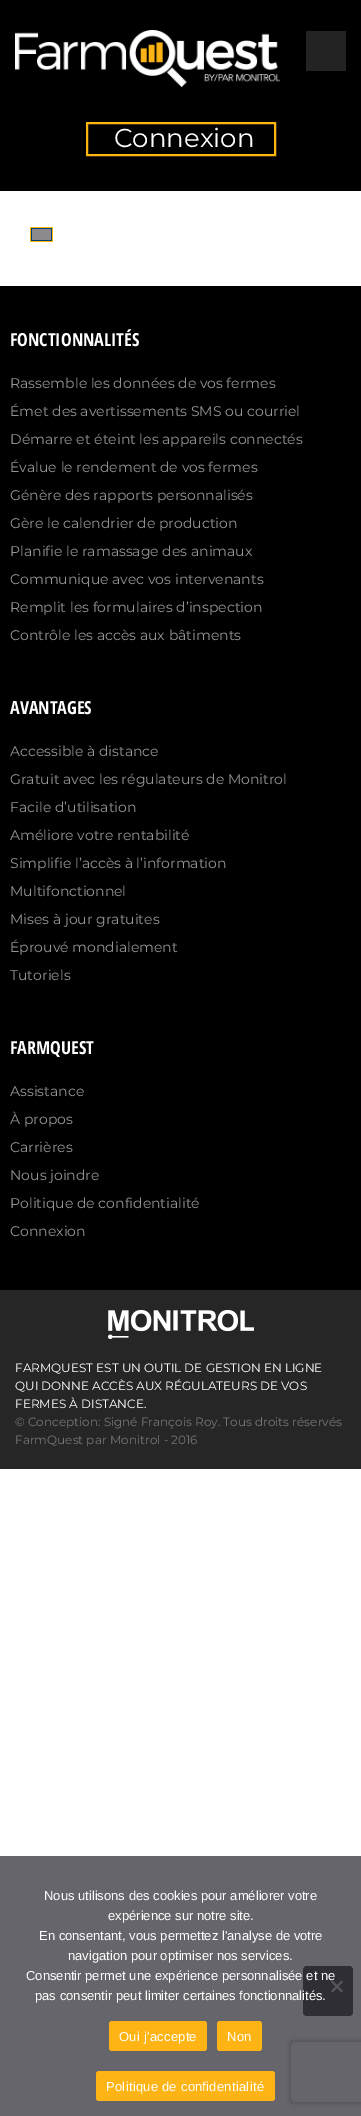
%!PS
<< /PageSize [361 2116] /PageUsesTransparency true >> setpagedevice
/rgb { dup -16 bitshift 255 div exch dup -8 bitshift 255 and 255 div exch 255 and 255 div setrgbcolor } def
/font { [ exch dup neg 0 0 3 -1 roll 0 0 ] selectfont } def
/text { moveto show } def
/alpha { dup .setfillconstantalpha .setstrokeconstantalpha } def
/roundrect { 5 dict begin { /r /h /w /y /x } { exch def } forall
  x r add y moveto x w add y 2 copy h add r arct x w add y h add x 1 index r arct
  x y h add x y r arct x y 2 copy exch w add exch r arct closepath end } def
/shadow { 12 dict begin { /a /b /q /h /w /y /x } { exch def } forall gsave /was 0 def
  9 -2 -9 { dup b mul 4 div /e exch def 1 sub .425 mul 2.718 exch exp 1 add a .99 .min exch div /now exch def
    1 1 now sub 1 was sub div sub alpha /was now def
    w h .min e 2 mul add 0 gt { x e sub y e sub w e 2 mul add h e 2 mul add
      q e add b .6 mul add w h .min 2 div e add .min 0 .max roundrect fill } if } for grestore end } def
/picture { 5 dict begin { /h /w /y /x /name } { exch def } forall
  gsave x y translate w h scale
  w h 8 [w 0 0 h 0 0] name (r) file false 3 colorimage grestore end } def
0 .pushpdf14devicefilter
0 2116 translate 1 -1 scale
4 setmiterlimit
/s1 { /Montserrat-Regular 26 font 16#FFFFFF rgb } def
/s2 { /OpenSansCondensed-Bold 18 font 16#FFFFFF rgb } def
/s3 { /Montserrat-Regular 14 font 16#959595 rgb } def
/s4 { /Montserrat-Regular 12 font 16#FFFFFF rgb } def
/s5 { /Montserrat-Regular 12 font 16#757575 rgb } def
/s6 { /LiberationSans-Regular 13 font 16#FFFFFF rgb } def
16#FFFFFF rgb
0 0 361 2116 rectfill
16#65656B rgb
0 1856 361 260 rectfill
16#000000 rgb
0 0 361 191 rectfill
(pic1.raw) 15 30 265 57 picture
16#232323 rgb
306 31 40 40 rectfill
16#FDB414 rgb
2 setlinewidth
87 123 188 32 rectstroke
s1
(Connexion) 114 147 text
(pic2.raw) 30 227 23 15 picture
16#000000 rgb
0 286 361 1004 rectfill
s2
(FONCTIONNALITÉS) 10 346 text
s3
(Rassemble les données de vos fermes) 10 388 text
(Émet des avertissements SMS ou courriel) 10 416 text
(Démarre et éteint les appareils connectés) 10 444 text
(Évalue le rendement de vos fermes) 10 472 text
(Génère des rapports personnalisés) 10 500 text
(Gère le calendrier de production) 10 528 text
(Planifie le ramassage des animaux) 10 556 text
(Communique avec vos intervenants) 10 584 text
(Remplit les formulaires d’inspection) 10 612 text
(Contrôle les accès aux bâtiments) 10 640 text
s2
(AVANTAGES) 10 714 text
s3
(Accessible à distance) 10 756 text
(Gratuit avec les régulateurs de Monitrol) 10 784 text
(Facile d’utilisation) 10 812 text
(Améliore votre rentabilité) 10 840 text
(Simplifie l’accès à l’information) 10 868 text
(Multifonctionnel) 10 896 text
(Mises à jour gratuites) 10 924 text
(Éprouvé mondialement) 10 952 text
(Tutoriels) 10 980 text
s2
(FARMQUEST) 10 1054 text
s3
(Assistance) 10 1096 text
(À propos) 10 1124 text
(Carrières) 10 1152 text
(Nous joindre) 10 1180 text
(Politique de confidentialité) 10 1208 text
(Connexion) 10 1236 text
16#262626 rgb
0 1290 361 179 rectfill
(pic3.raw) 108 1310 146 29 picture
s4
(FARMQUEST EST UN OUTIL DE GESTION EN LIGNE) 15 1372 text
(QUI DONNE ACCÈS AUX RÉGULATEURS DE VOS) 15 1390 text
(FERMES À DISTANCE.) 15 1408 text
s5
(© Conception: Signé François Roy. Tous droits réservés) 15 1426 text
(FarmQuest par Monitrol - 2016) 15 1444 text
s6
(Nous utilisons des cookies pour améliorer votre) 44 1900 text
(expérience sur notre site.) 108 1920 text
(En consentant, vous permettez l'analyse de votre) 39 1940 text
(navigation pour optimiser nos services.) 68 1960 text
16#2E2E34 rgb
303 1966 50 50 4 roundrect fill
s6
(Consentir permet une expérience personnalisée et ne) 26 1980 text
(pas consentir peut limiter certaines fonctionnalités.) 35 2000 text
16#57575A rgb
341.5 1980.5 moveto 343 1982 lineto 332.5 1992.5 lineto 331 1991 lineto closepath fill
331 1982 moveto 332.5 1980.5 lineto 343 1991 lineto 341.5 1992.5 lineto closepath fill
16#FDB414 rgb
109 2021 98 30 3 roundrect fill
16#FFFFFF rgb
119 2041 moveto 0.25 0 (Oui j'accepte) ashow
16#FDB414 rgb
217 2021 45 30 3 roundrect fill
16#FFFFFF rgb
227 2041 moveto 0.25 0 (Non) ashow
16#FDB414 rgb
96 2071 179 30 3 roundrect fill
16#FFFFFF rgb
106 2091 moveto 0.25 0 (Politique de confidentialité) ashow
gsave
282 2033 moveto 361 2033 lineto 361 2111 lineto 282 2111 lineto closepath 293 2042 moveto 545 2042 lineto 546 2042 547 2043 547 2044 curveto 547 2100 lineto 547 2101 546 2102 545 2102 curveto 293 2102 lineto 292 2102 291 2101 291 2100 curveto 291 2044 lineto 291 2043 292 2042 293 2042 curveto closepath eoclip newpath
16#46464C rgb
291 2042 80 60 2 2.5 1 shadow
grestore
.poppdf14devicefilter showpage
